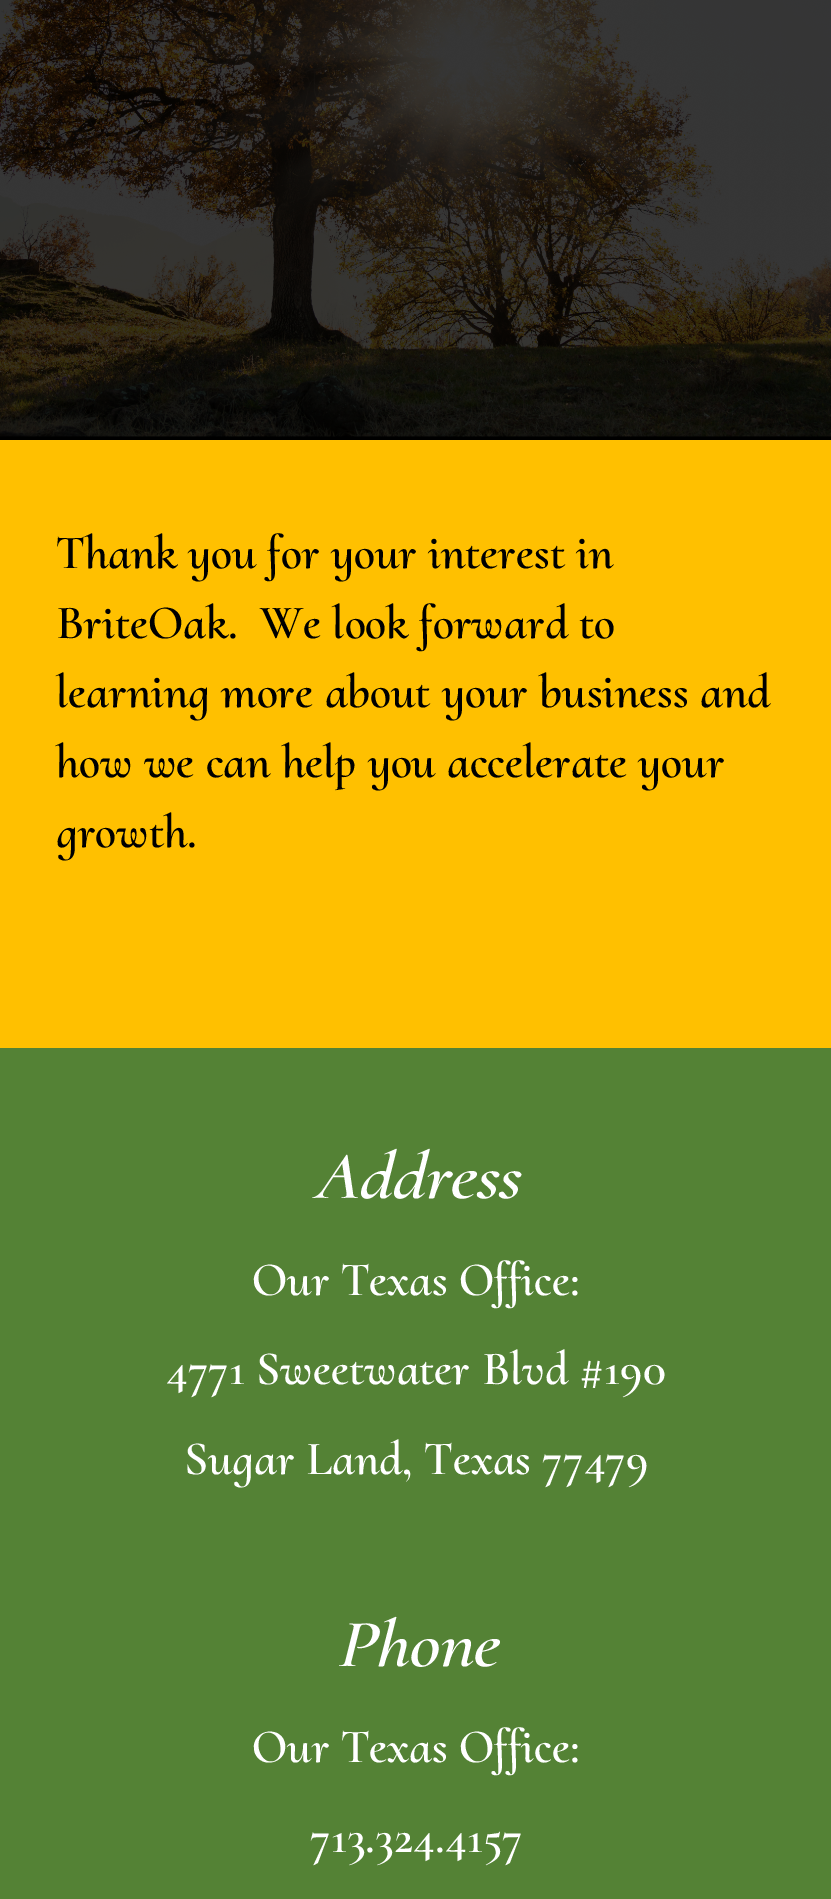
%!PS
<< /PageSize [831 1899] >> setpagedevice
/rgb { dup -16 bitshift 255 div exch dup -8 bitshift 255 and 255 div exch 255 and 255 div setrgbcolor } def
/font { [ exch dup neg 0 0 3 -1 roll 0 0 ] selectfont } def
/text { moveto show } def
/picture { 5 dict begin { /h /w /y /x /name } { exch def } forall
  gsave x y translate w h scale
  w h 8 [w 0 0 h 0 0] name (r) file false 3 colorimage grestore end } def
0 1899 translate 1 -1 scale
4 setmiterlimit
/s1 { /CormorantUpright-SemiBold 48 font 16#000000 rgb } def
/s2 { /CormorantUpright-SemiBoldItalic 68 font 16#FFFFFF rgb } def
/s3 { /CormorantUpright-SemiBold 48 font 16#FFFFFF rgb } def
16#FFFFFF rgb
0 0 831 1899 rectfill
(pic1.raw) 0 0 831 440 picture
16#FFC000 rgb
0 440 831 608 rectfill
s1
(Thank you for your interest in) 56 568 text
(BriteOak.  We look forward to) 56 638 text
(learning more about your business and) 56 707 text
(how we can help you accelerate your) 56 777 text
(growth.) 56 847 text
16#548235 rgb
0 1048 831 851 rectfill
s2
(Address) 313 1198 text
s3
(Our Texas Office:) 252 1295 text
(4771 Sweetwater Blvd #190) 166 1384 text
(Sugar Land, Texas 77479) 184 1474 text
s2
(Phone) 336 1666 text
s3
(Our Texas Office:) 252 1762 text
(713.324.4157) 310 1852 text
showpage
